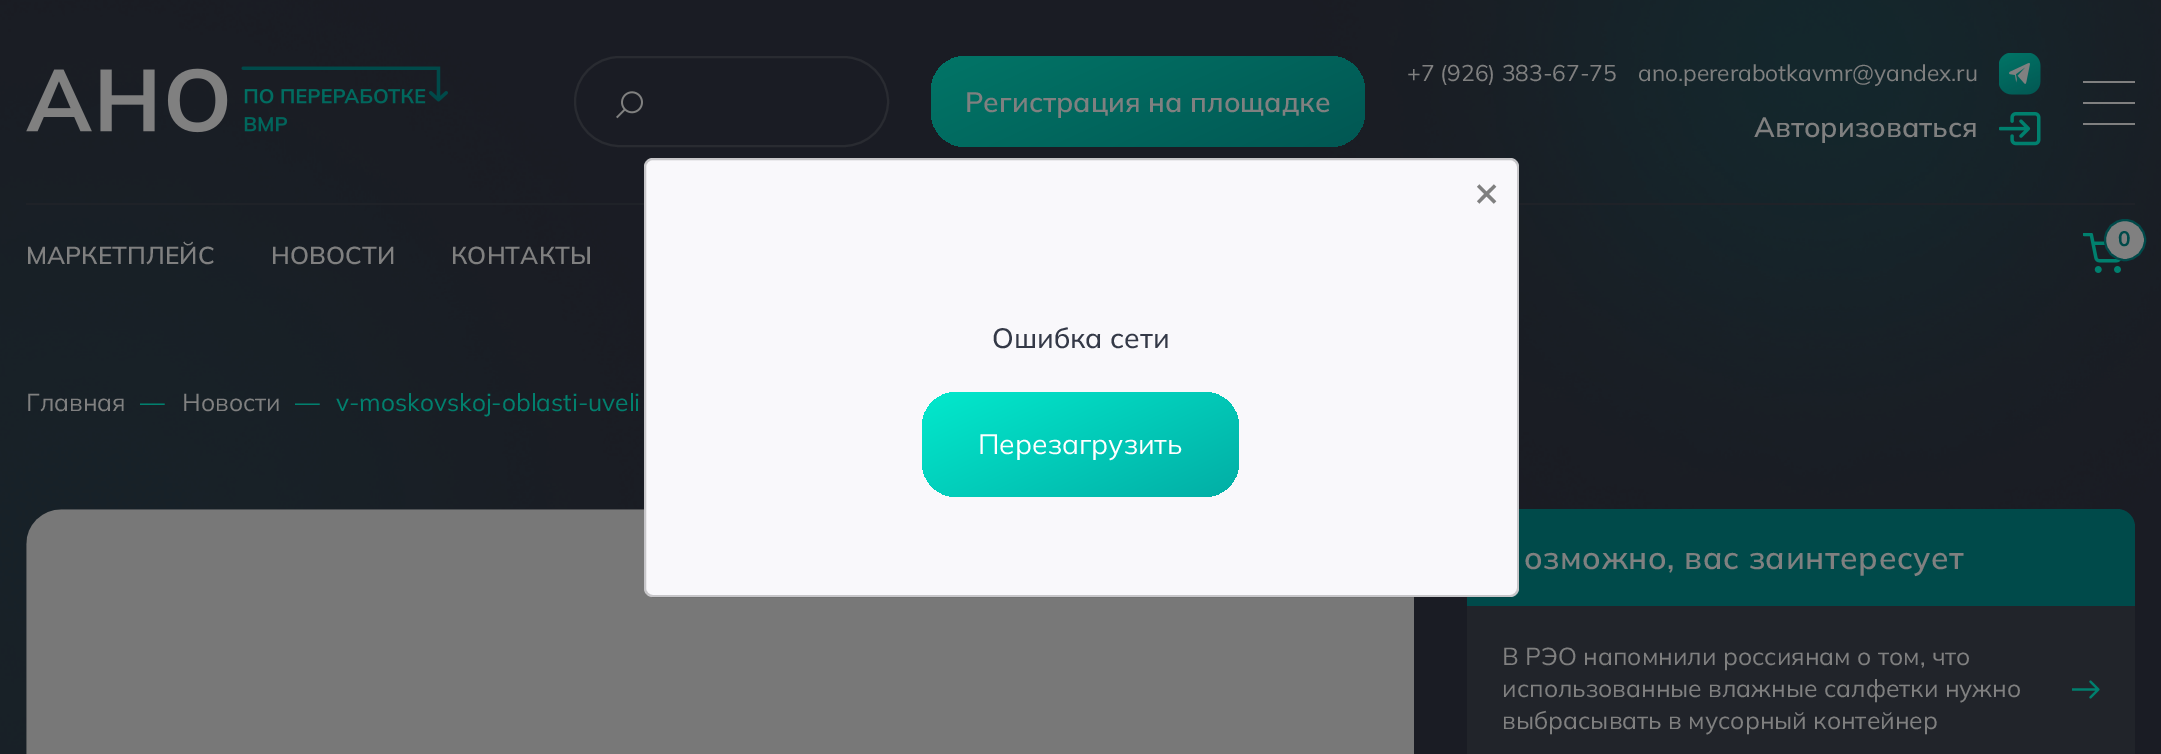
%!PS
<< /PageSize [2161 754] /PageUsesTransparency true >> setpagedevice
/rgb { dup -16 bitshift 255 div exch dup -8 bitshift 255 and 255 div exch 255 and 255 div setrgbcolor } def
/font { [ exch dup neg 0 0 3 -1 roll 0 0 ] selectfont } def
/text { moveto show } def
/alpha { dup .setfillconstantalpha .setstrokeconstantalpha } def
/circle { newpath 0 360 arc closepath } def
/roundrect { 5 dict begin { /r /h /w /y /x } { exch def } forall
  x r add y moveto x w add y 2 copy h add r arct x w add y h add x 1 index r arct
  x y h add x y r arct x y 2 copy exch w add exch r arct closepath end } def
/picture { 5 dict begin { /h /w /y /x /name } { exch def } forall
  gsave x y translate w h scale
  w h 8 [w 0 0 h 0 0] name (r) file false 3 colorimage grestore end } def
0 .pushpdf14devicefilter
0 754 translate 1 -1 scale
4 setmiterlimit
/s1 { /Mulish-SemiBold 28 font 16#808080 rgb } def
/s2 { /Mulish-Regular 22.75 font 16#808080 rgb } def
/s3 { /Mulish-Bold 21 font 16#004A4A rgb } def
/s4 { /Mulish-SemiBold 24.5 font 16#808080 rgb } def
/s5 { /Mulish-Regular 24.5 font 16#808080 rgb } def
/s6 { /Mulish-Regular 24.5 font 16#01806E rgb } def
/s7 { /Mulish-Bold 42 font 16#808080 rgb } def
/s8 { /Mulish-Medium 28 font 16#343947 rgb } def
/s9 { /Mulish-Regular 28 font 16#FFFFFF rgb } def
16#1A1D24 rgb
0 0 2161 754 rectfill
(pic1.raw) 0 0 2161 754 picture
(pic2.raw) 26 66 422 67 picture
16#292B31 rgb
2 setlinewidth
575 57 313 89 44.5 roundrect stroke
(pic3.raw) 616 91 27 28 picture
gsave 931 56 434 91 35 roundrect clip newpath
<< /ShadingType 2 /ColorSpace /DeviceRGB /Coords [1053 -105 1288 407] /Extend [true true] /Function << /FunctionType 2 /Domain [0 1] /C0 [0.004 0.502 0.431] /C1 [0.008 0.251 0.263] /N 1 >> >> shfill grestore
s1
(Регистрация на площадке) 965 112 text
s2
(+7 \(926\) 383-67-75) 1407 81 text
(ano.pererabotkavmr@yandex.ru) 1638 81 text
(pic4.raw) 1999 53 42 42 picture
s1
(Авторизоваться) 1754 137 text
(pic5.raw) 1999 112 42 34 picture
2083 81 52 2 rectfill
2083 102 52 2 rectfill
2083 123 52 2 rectfill
16#1F2228 rgb
26 203 2109 2 rectfill
(pic6.raw) 2083 233 38 40 picture
16#808080 rgb
2125 240 20 circle gsave fill grestore
16#004A4A rgb
stroke
s3
(0) 2118 246 text
s4
(МАРКЕТПЛЕЙС) 26 264 text
(НОВОСТИ) 271 264 text
(КОНТАКТЫ) 451 264 text
s5
(Главная) 26 411 text
s6
(—) 140 411 text
s5
(Новости) 182 411 text
s6
(—) 295 411 text
(v-moskovskoj-oblasti-uveli) 336 411 text
(pic7.raw) 26 509 1388 245 picture
16#004A4A rgb
1485 509 moveto 2117 509 lineto 2127 509 2135 517 2135 527 curveto 2135 606 lineto 1467 606 lineto 1467 527 lineto 1467 517 1475 509 1485 509 curveto closepath fill
/Mulish-SemiBold 31.5 font
16#808080 rgb
1524 569 moveto 0.6 0 (озможно, вас заинтересует) ashow
16#21242A rgb
1467 606 668 148 rectfill
s5
(В РЭО напомнили россиянам о том, что) 1502 665 text
(использованные влажные салфетки нужно) 1502 697 text
(pic8.raw) 2072 680 28 19 picture
(выбрасывать в мусорный контейнер) 1502 729 text
16#F9F8FB rgb
644 158 875 439 9 roundrect fill
0.2 alpha
16#000000 rgb
645 159 873 437 8 roundrect stroke
1 alpha
s7
(×) 1474 206 text
s8
(Ошибка сети) 992 348 text
gsave 922 392 317 105 35 roundrect clip newpath
<< /ShadingType 2 /ColorSpace /DeviceRGB /Coords [999 266 1202 708] /Extend [true true] /Function << /FunctionType 2 /Domain [0 1] /C0 [0.004 1 0.859] /C1 [0.016 0.502 0.525] /N 1 >> >> shfill grestore
s9
(Перезагрузить) 978 454 text
.poppdf14devicefilter showpage
